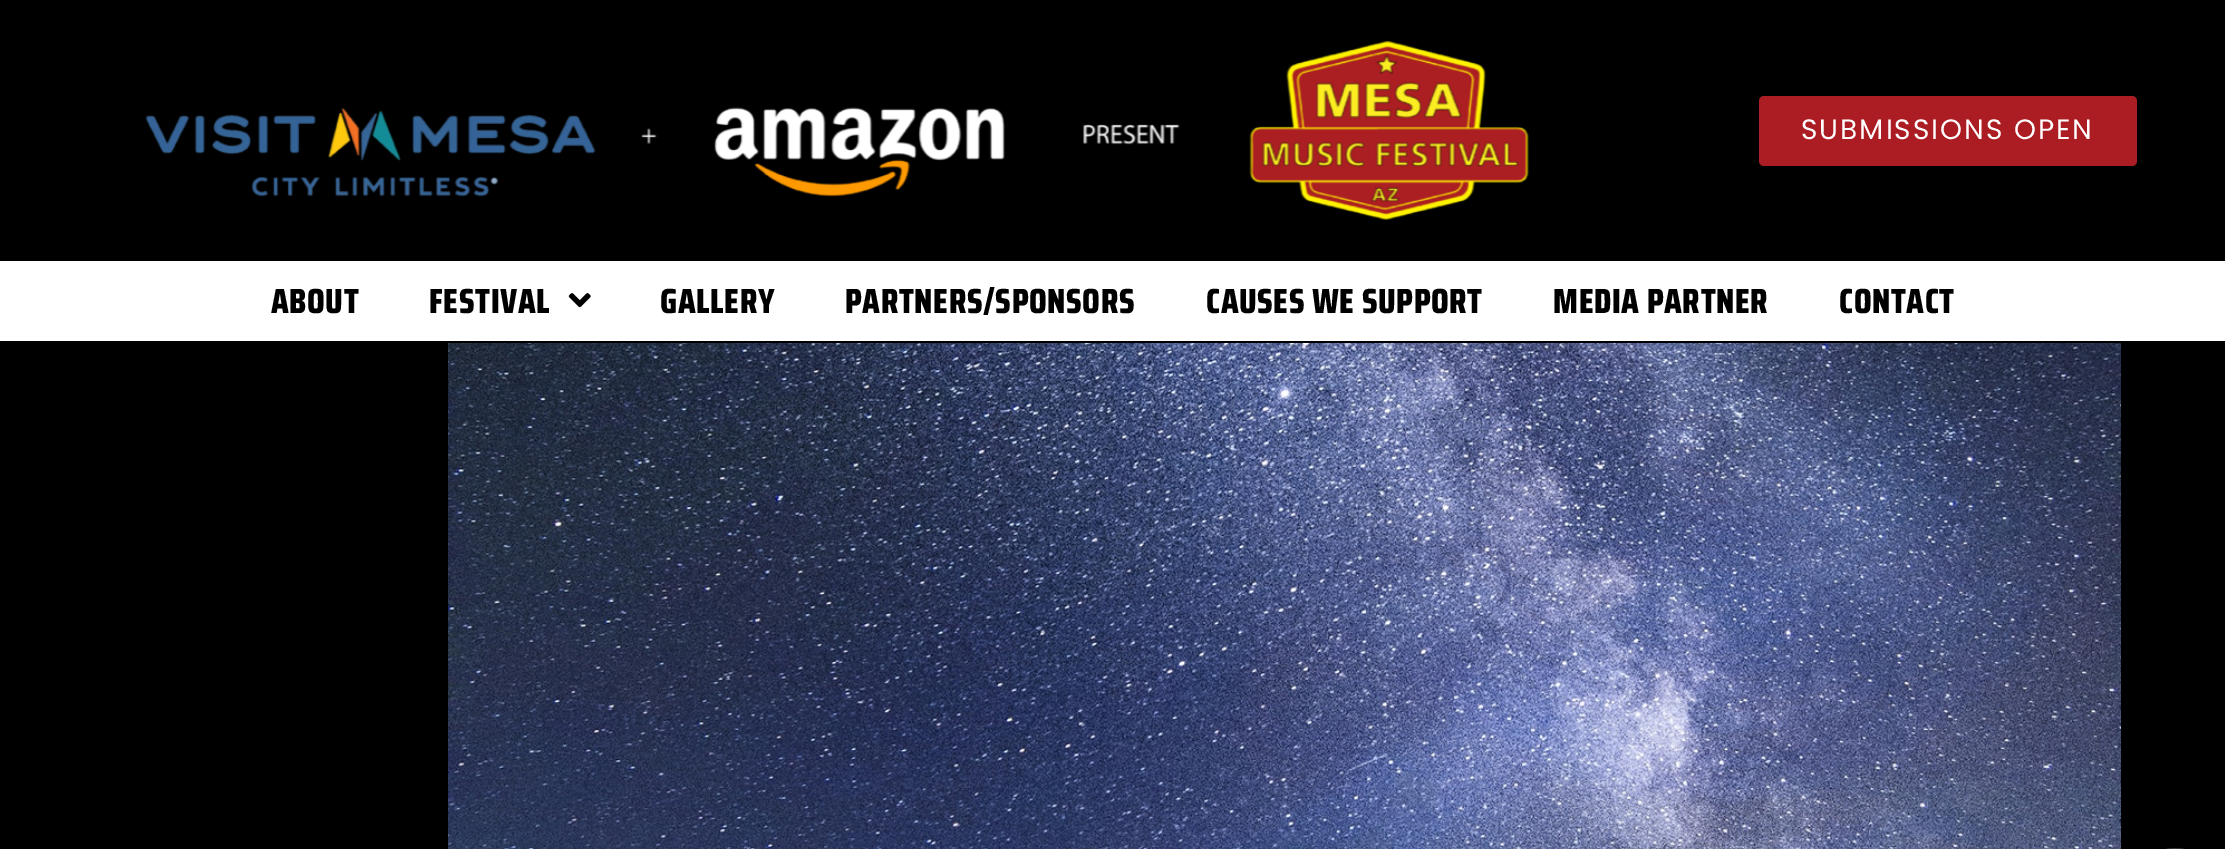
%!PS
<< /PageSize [2225 849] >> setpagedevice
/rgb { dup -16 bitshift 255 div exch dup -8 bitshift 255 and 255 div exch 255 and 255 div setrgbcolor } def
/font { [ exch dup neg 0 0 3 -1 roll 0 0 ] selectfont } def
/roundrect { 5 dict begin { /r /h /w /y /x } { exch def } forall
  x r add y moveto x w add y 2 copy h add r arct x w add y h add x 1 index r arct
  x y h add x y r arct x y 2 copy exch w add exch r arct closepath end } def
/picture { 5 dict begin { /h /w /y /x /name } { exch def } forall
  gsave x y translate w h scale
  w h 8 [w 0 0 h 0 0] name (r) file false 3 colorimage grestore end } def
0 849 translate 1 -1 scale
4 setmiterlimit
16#000000 rgb
0 0 2225 849 rectfill
(pic1.raw) 145 40 1384 180 picture
16#AB1C23 rgb
1759 96 378 70 5 roundrect fill
/Poppins-Regular 28 font
16#FFFFFF rgb
1801 139 moveto 2 0 (SUBMISSIONS OPEN) ashow
0 261 2225 80 rectfill
/SairaCondensed-ExtraBold 35 font
16#000000 rgb
271 313 moveto 0.6 0 (ABOUT) ashow
429 313 moveto 0.6 0 (FESTIVAL) ashow
(pic2.raw) 568 293 23 15 picture
660 313 moveto 0.6 0 (GALLERY) ashow
845 313 moveto 0.6 0 (PARTNERS/SPONSORS) ashow
1206 313 moveto 0.6 0 (CAUSES WE SUPPORT) ashow
1553 313 moveto 0.6 0 (MEDIA PARTNER) ashow
1839 313 moveto 0.6 0 (CONTACT) ashow
(pic3.raw) 448 343 1673 506 picture
(pic4.raw) 2166 848 18 1 picture
showpage
